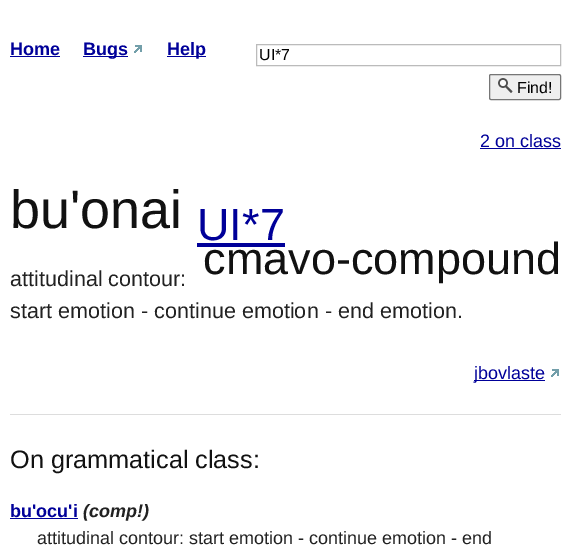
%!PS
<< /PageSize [571 553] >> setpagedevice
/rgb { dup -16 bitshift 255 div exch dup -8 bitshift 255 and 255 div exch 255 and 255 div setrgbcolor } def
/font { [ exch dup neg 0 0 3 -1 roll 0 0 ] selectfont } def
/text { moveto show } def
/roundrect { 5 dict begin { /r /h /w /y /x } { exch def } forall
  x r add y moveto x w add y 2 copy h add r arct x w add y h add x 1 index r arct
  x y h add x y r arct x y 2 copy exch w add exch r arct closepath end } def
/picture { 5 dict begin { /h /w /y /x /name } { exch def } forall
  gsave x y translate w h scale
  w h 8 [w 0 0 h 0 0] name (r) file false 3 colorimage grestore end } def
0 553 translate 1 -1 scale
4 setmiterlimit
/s1 { /LiberationSans-Bold 18 font 16#000099 rgb } def
/s2 { /LiberationSans-Regular 16 font 16#000000 rgb } def
/s3 { /LiberationSans-Regular 18 font 16#000099 rgb } def
/s4 { /LiberationSans-Regular 54 font 16#111111 rgb } def
/s5 { /LiberationSans-Regular 45 font 16#000099 rgb } def
/s6 { /LiberationSans-Regular 45 font 16#111111 rgb } def
/s7 { /LiberationSans-Regular 21.6 font 16#222222 rgb } def
/s8 { /LiberationSans-Regular 25.25 font 16#111111 rgb } def
/s9 { /LiberationSans-BoldItalic 18 font 16#222222 rgb } def
/s10 { /LiberationSans-Regular 18 font 16#222222 rgb } def
16#FFFFFF rgb
0 0 571 553 rectfill
s1
(Home) 10 55 text
10 56 50 1 rectfill
83 56 45 1 rectfill
(Bugs) 83 55 text
(pic1.raw) 134 45 8 8 picture
167 56 39 1 rectfill
(Help) 167 55 text
16#BBBBBB rgb
256.5 44.5 304 21 rectstroke
s2
(UI*7) 259 60 text
16#EFEFEF rgb
489.5 74.5 71 25 1.5 roundrect gsave fill grestore
16#767676 rgb
stroke
(pic2.raw) 498 78 15 15 picture
s2
(Find!) 517 93 text
s3
(2 on class) 480 147 text
480 148 81 1 rectfill
s4
(bu'onai) 10 228 text
s5
(UI*7) 197 240 text
s6
(cmavo-compound) 203 274 text
16#000099 rgb
197 243 88 4 rectfill
s7
(attitudinal contour:) 10 286 text
(start emotion - continue emotion - end emotion.) 10 318 text
16#000099 rgb
474 380 71 1 rectfill
s3
(jbovlaste) 474 379 text
(pic1.raw) 551 369 8 8 picture
16#DDDDDD rgb
10 414 551 1 rectfill
s8
(On grammatical class:) 10 468 text
s1
(bu'ocu'i) 10 517 text
10 518 68 1 rectfill
s9
(\(comp!\)) 83 517 text
s10
(attitudinal contour: start emotion - continue emotion - end) 37 544 text
showpage
